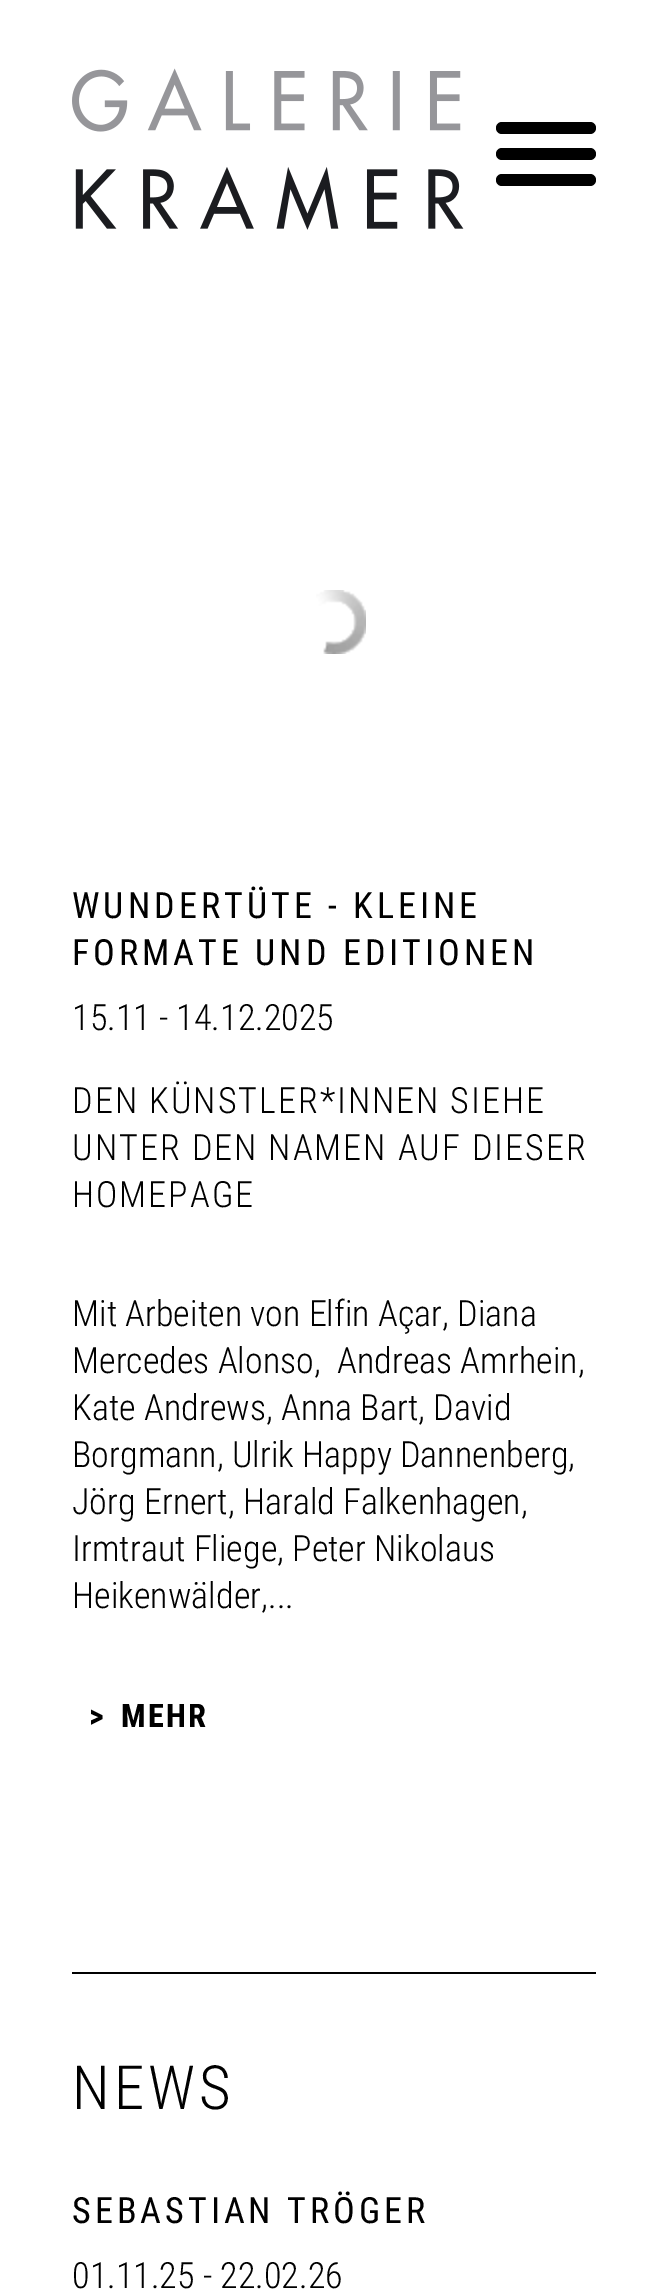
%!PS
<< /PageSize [668 2291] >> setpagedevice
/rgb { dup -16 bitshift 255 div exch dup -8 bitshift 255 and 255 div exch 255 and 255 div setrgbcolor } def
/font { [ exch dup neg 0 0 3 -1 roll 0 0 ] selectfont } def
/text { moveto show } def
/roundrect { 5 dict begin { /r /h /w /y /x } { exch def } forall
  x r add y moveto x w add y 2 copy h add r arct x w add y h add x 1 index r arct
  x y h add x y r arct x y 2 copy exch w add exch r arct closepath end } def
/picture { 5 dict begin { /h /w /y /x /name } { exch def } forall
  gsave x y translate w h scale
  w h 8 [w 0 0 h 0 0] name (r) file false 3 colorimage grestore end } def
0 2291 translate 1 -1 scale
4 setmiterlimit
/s1 { /RobotoCondensed-Light 36.1 font 16#000000 rgb } def
16#FFFFFF rgb
0 0 668 2291 rectfill
(pic1.raw) 72 68 392 162 picture
16#000000 rgb
496 122 100 12 6 roundrect fill
496 148 100 12 6 roundrect fill
496 174 100 12 6 roundrect fill
72 1972 524 2 rectfill
(pic2.raw) 316 590 50 64 picture
/RobotoCondensed-Regular 36.1 font
72 918 moveto 4 0 (WUNDERTÜTE - KLEINE) ashow
72 965 moveto 4 0 (FORMATE UND EDITIONEN) ashow
s1
(15.11 - 14.12.2025) 72 1030 text
72 1113 moveto 2 0 (DEN KÜNSTLER*INNEN SIEHE) ashow
72 1160 moveto 2 0 (UNTER DEN NAMEN AUF DIESER) ashow
72 1207 moveto 2 0 (HOMEPAGE) ashow
(Mit Arbeiten von Elfin Açar, Diana) 72 1326 text
(Mercedes Alonso,  Andreas Amrhein,) 72 1373 text
(Kate Andrews, Anna Bart, David) 72 1420 text
(Borgmann, Ulrik Happy Dannenberg,) 72 1467 text
(Jörg Ernert, Harald Falkenhagen,) 72 1514 text
(Irmtraut Fliege, Peter Nikolaus) 72 1561 text
(Heikenwälder,...) 72 1608 text
/RobotoCondensed-Bold 32.5 font
89 1727 moveto 2 0 (>) ashow
121 1727 moveto 2 0 (MEHR) ashow
/RobotoCondensed-Light 61 font
72 2109 moveto 4 0 (NEWS) ashow
/RobotoCondensed-Regular 36.1 font
72 2223 moveto 4 0 (SEBASTIAN TRÖGER) ashow
s1
(01.11.25 - 22.02.26) 72 2288 text
showpage
